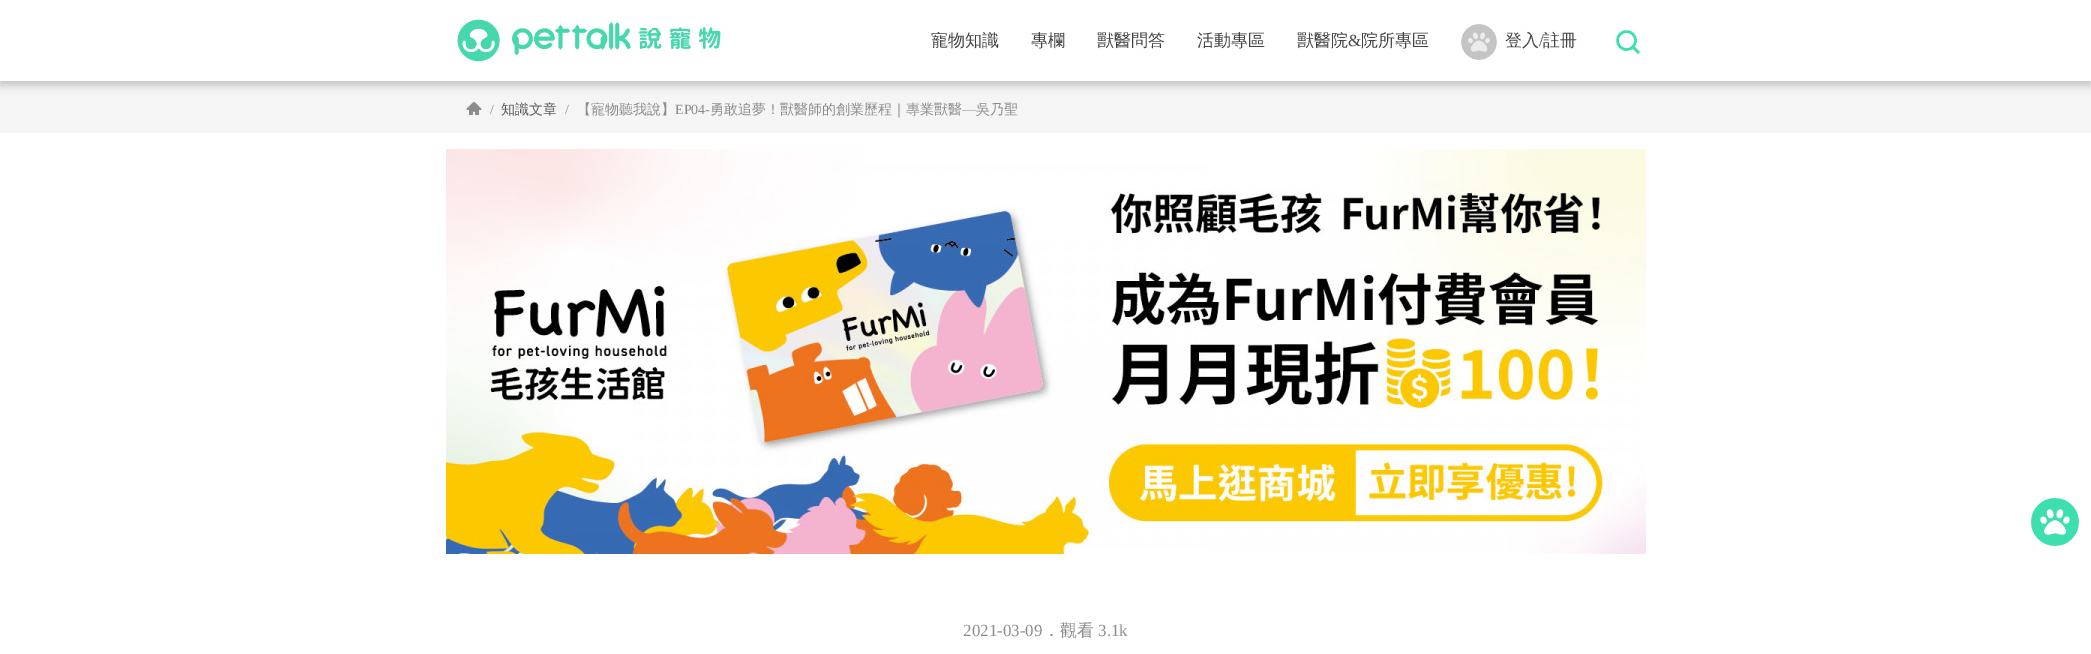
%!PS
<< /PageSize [2091 654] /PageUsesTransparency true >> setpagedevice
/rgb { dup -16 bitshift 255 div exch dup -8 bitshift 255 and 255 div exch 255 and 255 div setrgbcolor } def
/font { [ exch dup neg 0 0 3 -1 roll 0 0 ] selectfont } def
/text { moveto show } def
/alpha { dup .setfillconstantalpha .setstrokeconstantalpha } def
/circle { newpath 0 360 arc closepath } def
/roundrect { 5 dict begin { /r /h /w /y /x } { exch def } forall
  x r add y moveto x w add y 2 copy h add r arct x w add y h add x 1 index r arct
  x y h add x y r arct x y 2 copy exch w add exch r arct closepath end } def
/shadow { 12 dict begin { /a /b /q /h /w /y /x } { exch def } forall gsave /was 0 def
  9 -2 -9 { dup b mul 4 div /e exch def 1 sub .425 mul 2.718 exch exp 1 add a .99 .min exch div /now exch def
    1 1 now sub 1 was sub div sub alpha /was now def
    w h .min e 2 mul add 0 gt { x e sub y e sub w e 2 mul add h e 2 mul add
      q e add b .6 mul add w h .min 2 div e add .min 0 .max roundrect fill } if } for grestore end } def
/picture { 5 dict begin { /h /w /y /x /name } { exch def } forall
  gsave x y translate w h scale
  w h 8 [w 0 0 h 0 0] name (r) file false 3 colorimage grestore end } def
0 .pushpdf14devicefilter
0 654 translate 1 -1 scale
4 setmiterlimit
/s1 { /WenQuanYiZenHei-Medium 17 font 16#434343 rgb } def
/s2 { /LiberationSerif-Regular 17 font 16#434343 rgb } def
/s3 { /LiberationSerif-Regular 14 font 16#8C8C8C rgb } def
/s4 { /WenQuanYiZenHei-Medium 14 font 16#595959 rgb } def
/s5 { /WenQuanYiZenHei-Medium 14 font 16#8C8C8C rgb } def
/s6 { /LiberationSerif-Regular 17 font 16#8C8C8C rgb } def
/s7 { /WenQuanYiZenHei-Medium 17 font 16#8C8C8C rgb } def
16#FFFFFF rgb
0 0 2091 654 rectfill
16#F5F5F5 rgb
0 81 2091 52 rectfill
gsave
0 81 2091 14 rectclip
16#BFBFBF rgb
0 4 2091 81 0 5 1 shadow
grestore
(pic1.raw) 457 19 264 43 picture
s1
(寵物知識) 931 46 text
(專欄) 1031 46 text
(獸醫問答) 1097 46 text
(活動專區) 1197 46 text
(獸醫院) 1297 46 text
s2
(&) 1348 46 text
s1
(院所專區) 1361 46 text
(pic2.raw) 1461 24 36 36 picture
(登入) 1505 46 text
s2
(/) 1539 46 text
s1
(註冊) 1543 46 text
16#3DDFAE rgb
2.5 setlinewidth
1626.5 40.5 9 circle stroke
1632.5 46.5 moveto 1639 53 lineto stroke
(pic3.raw) 466 102 16 13 picture
s3
(/) 490 114 text
s4
(知識文章) 501 114 text
s3
(/) 565 114 text
s5
(【寵物聽我說】) 577 114 text
s3
(EP04-) 675 114 text
s5
(勇敢追夢！獸醫師的創業歷程｜專業獸醫) 710 114 text
s3
(—) 962 114 text
s5
(吳乃聖) 976 114 text
(pic4.raw) 2031 498 48 48 picture
(pic5.raw) 446 149 1200 405 picture
s6
(2021-03-09) 963 636 text
s7
(．觀看) 1043 636 text
s6
(3.1k) 1098 636 text
.poppdf14devicefilter showpage
